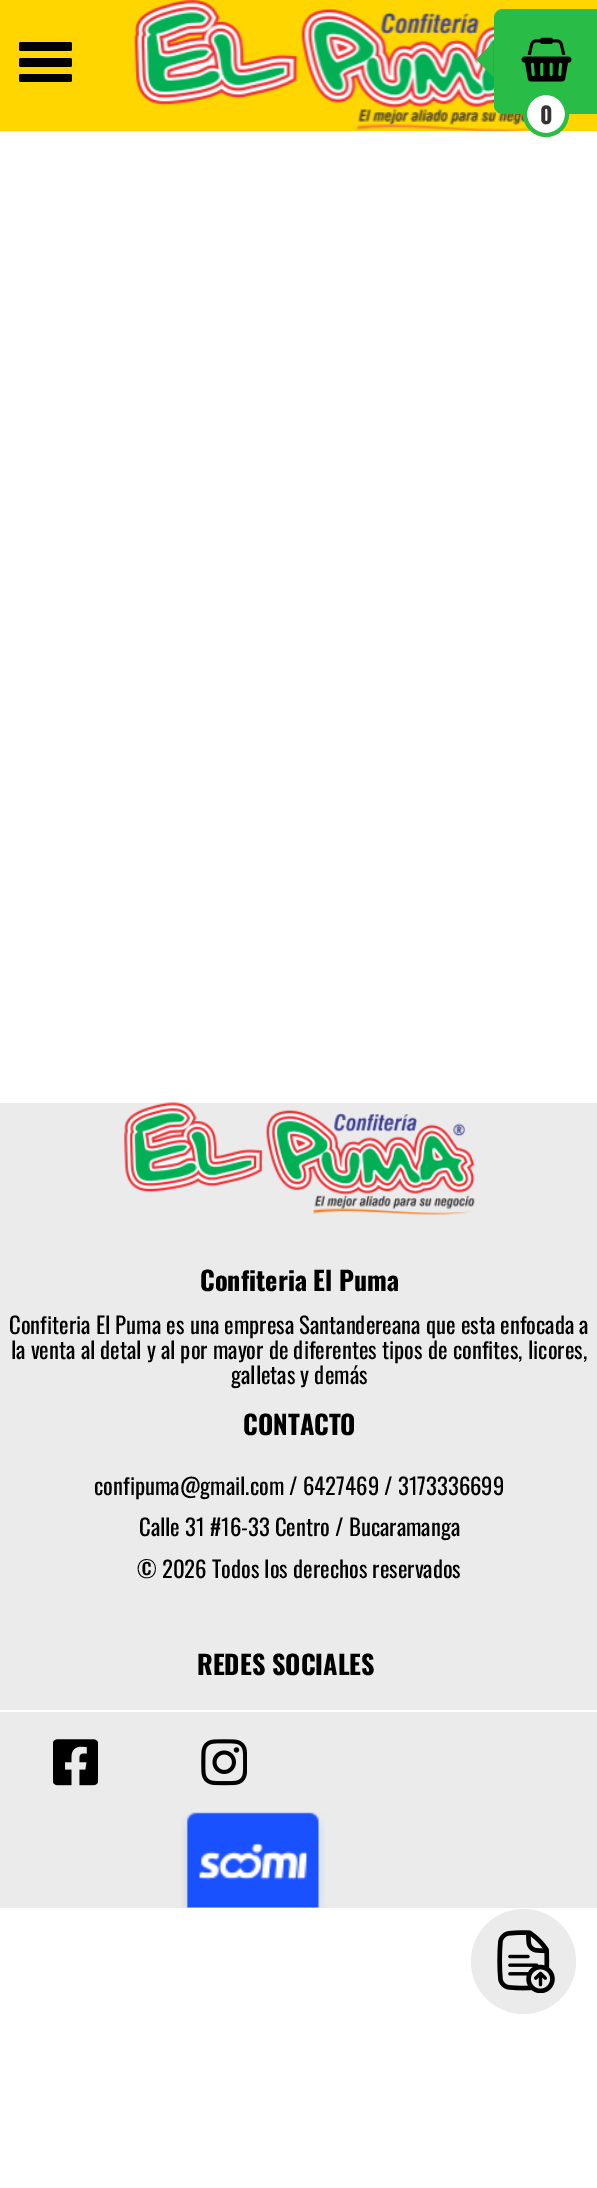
%!PS
<< /PageSize [597 2188] >> setpagedevice
/rgb { dup -16 bitshift 255 div exch dup -8 bitshift 255 and 255 div exch 255 and 255 div setrgbcolor } def
/font { [ exch dup neg 0 0 3 -1 roll 0 0 ] selectfont } def
/text { moveto show } def
/circle { newpath 0 360 arc closepath } def
/roundrect { 5 dict begin { /r /h /w /y /x } { exch def } forall
  x r add y moveto x w add y 2 copy h add r arct x w add y h add x 1 index r arct
  x y h add x y r arct x y 2 copy exch w add exch r arct closepath end } def
/picture { 5 dict begin { /h /w /y /x /name } { exch def } forall
  gsave x y translate w h scale
  w h 8 [w 0 0 h 0 0] name (r) file false 3 colorimage grestore end } def
0 2188 translate 1 -1 scale
4 setmiterlimit
/s1 { /Oswald-Bold 22.75 font 16#333333 rgb } def
/s2 { /Oswald-Bold 26.25 font 16#000000 rgb } def
/s3 { /Oswald-Regular 22.75 font 16#000000 rgb } def
16#FFFFFF rgb
0 0 597 2188 rectfill
16#FFD600 rgb
0 0 597 131 rectfill
16#000000 rgb
19 42 53 9 2 roundrect fill
19 58 53 9 2 roundrect fill
19 74 53 8 2 roundrect fill
(pic1.raw) 134 0 397 132 picture
16#29BD47 rgb
503 9 moveto 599 9 lineto 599 114 lineto 503 114 lineto 498 114 494 110 494 105 curveto 494 18 lineto 494 13 498 9 503 9 curveto closepath fill
493.5 42 moveto 493.5 77 lineto 476 59.5 lineto closepath fill
(pic2.raw) 521 37 51 45 picture
16#FFFFFF rgb
546 114 21 circle gsave fill grestore
16#29BD47 rgb
4 setlinewidth
stroke
s1
(0) 540 124 text
16#EBEBEB rgb
0 1103 597 805 rectfill
(pic3.raw) 124 1102 351 113 picture
s2
(Confiteria El Puma) 200 1291 text
s3
(Confiteria El Puma es una empresa Santandereana que esta enfocada a) 9 1334 text
(la venta al detal y al por mayor de diferentes tipos de confites, licores,) 11 1359 text
(galletas y demás) 231 1384 text
s2
(CONTACTO) 243 1435 text
s3
(confipuma@gmail.com / 6427469 / 3173336699) 94 1495 text
(Calle 31 #16-33 Centro / Bucaramanga) 139 1536 text
(© 2026 Todos los derechos reservados) 137 1578 text
16#FFFFFF rgb
0 1710 597 2 rectfill
s2
(REDES SOCIALES) 197 1675 text
(pic4.raw) 53 1739 45 47 picture
(pic5.raw) 201 1739 46 47 picture
(pic6.raw) 181 1812 144 96 picture
16#EBEBEB rgb
523.5 1961.5 52.5 circle fill
(pic7.raw) 497 1930 58 63 picture
showpage
